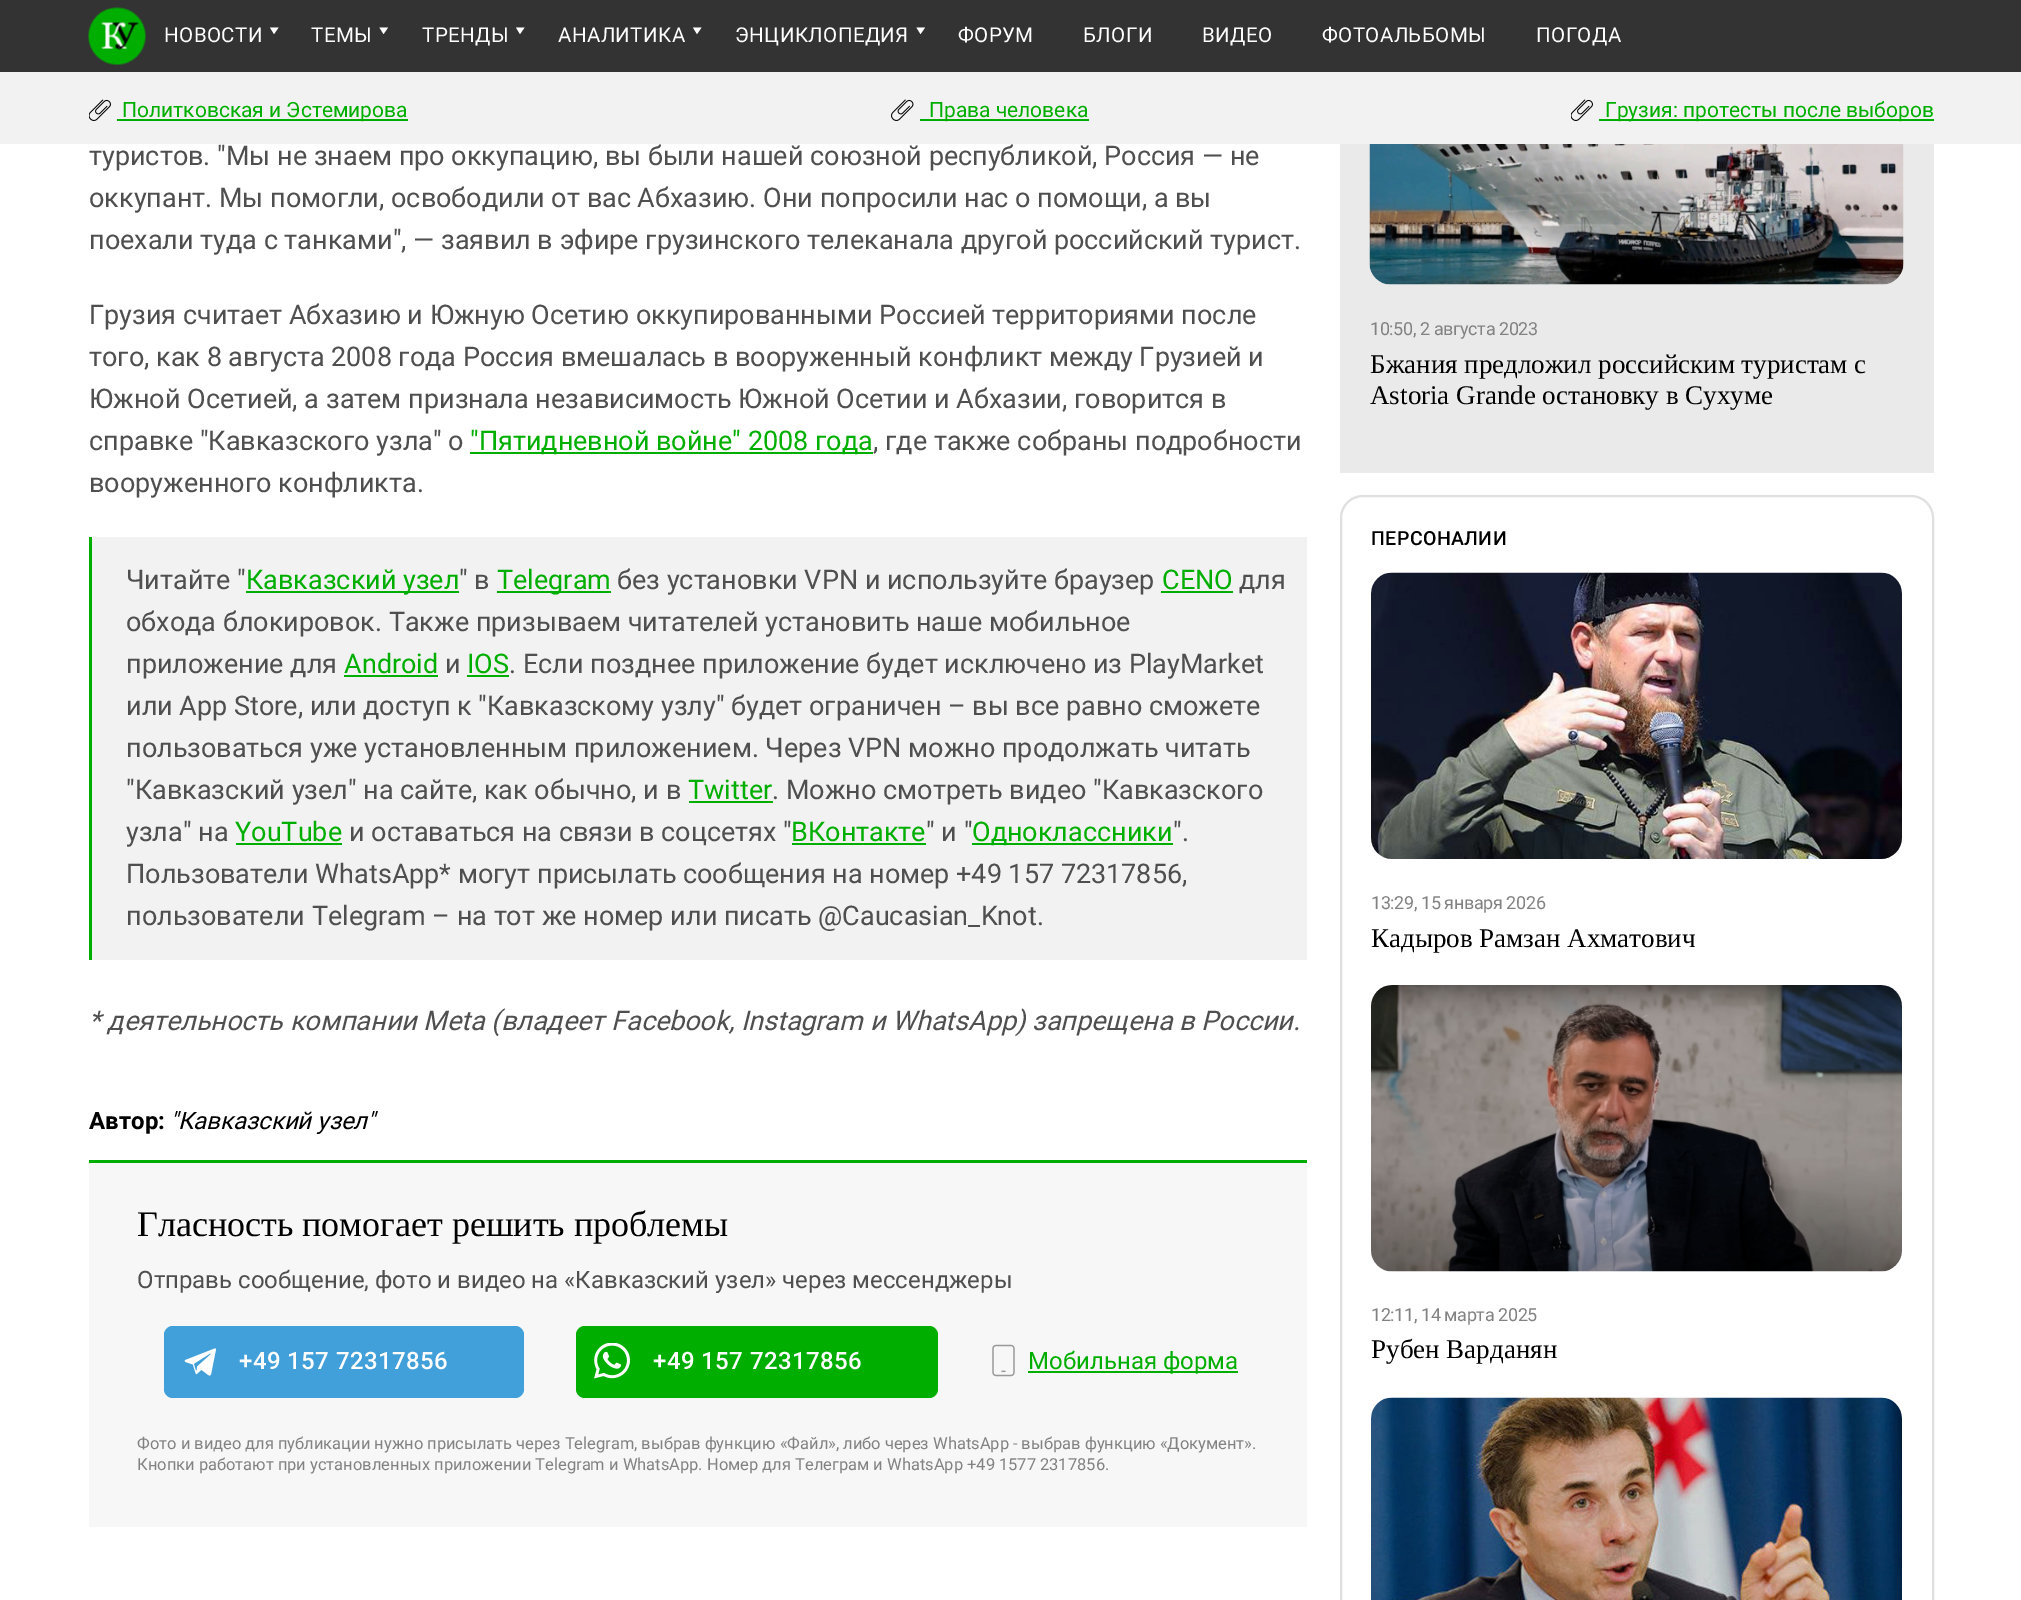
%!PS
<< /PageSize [2021 1600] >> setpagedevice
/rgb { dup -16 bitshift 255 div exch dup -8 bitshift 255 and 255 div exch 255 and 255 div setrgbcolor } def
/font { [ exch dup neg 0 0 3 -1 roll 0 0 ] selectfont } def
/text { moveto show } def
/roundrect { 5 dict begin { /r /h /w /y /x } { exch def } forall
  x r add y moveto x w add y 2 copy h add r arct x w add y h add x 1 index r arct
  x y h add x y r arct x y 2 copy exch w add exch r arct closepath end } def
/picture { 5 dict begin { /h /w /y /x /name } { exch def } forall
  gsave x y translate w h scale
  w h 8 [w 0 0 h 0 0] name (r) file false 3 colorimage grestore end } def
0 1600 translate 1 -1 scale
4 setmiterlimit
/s1 { /Roboto-Regular 21 font 16#00AE00 rgb } def
/s2 { /Roboto-Regular 27 font 16#4F4F4F rgb } def
/s3 { /Roboto-Regular 27 font 16#00AE00 rgb } def
/s4 { /Roboto-Italic 27 font 16#4F4F4F rgb } def
/s5 { /Roboto-Bold 24 font 16#000000 rgb } def
/s6 { /Roboto-Italic 24 font 16#000000 rgb } def
/s7 { /LiberationSerif-Regular 36 font 16#000000 rgb } def
/s8 { /Roboto-Regular 24 font 16#4F4F4F rgb } def
/s9 { /Roboto-Regular 24 font 16#00AE00 rgb } def
/s10 { /Roboto-Regular 16.5 font 16#828282 rgb } def
/s11 { /LiberationSerif-Regular 27 font 16#000000 rgb } def
16#FFFFFF rgb
0 0 2021 1600 rectfill
16#333333 rgb
0 0 2021 72 rectfill
(pic1.raw) 88 7 58 58 picture
/Roboto-Regular 20.5 font
16#FFFFFF rgb
164 42 moveto 0.4 0 (НОВОСТИ) ashow
274 34 moveto 278.5 27.5 lineto 270 27.5 lineto closepath fill
311 42 moveto 0.4 0 (ТЕМЫ) ashow
383.5 34 moveto 388 27.5 lineto 379.5 27.5 lineto closepath fill
422 42 moveto 0.4 0 (ТРЕНДЫ) ashow
520 34 moveto 524.5 27.5 lineto 516 27.5 lineto closepath fill
558 42 moveto 0.4 0 (АНАЛИТИКА) ashow
697 34 moveto 701.5 27.5 lineto 693 27.5 lineto closepath fill
735 42 moveto 0.4 0 (ЭНЦИКЛОПЕДИЯ) ashow
920.5 34 moveto 925 27.5 lineto 916.5 27.5 lineto closepath fill
958 42 moveto 0.4 0 (ФОРУМ) ashow
1083 42 moveto 0.4 0 (БЛОГИ) ashow
1202 42 moveto 0.4 0 (ВИДЕО) ashow
1322 42 moveto 0.4 0 (ФОТОАЛЬБОМЫ) ashow
1536 42 moveto 0.4 0 (ПОГОДА) ashow
16#F2F2F2 rgb
0 72 2021 72 rectfill
(pic2.raw) 89 99 22 22 picture
16#00AE00 rgb
117 119 291 2 rectfill
s1
(Политковская и Эстемирова) 122 117 text
(pic3.raw) 891 99 23 22 picture
920 119 169 2 rectfill
(Права человека) 929 117 text
(pic2.raw) 1571 99 22 22 picture
1599 119 335 2 rectfill
(Грузия: протесты после выборов) 1605 117 text
s2
(туристов. "Мы не знаем про оккупацию, вы были нашей союзной республикой, Россия — не) 89 165 text
(оккупант. Мы помогли, освободили от вас Абхазию. Они попросили нас о помощи, а вы) 89 207 text
(поехали туда с танками", — заявил в эфире грузинского телеканала другой российский турист.) 89 249 text
(Грузия считает Абхазию и Южную Осетию оккупированными Россией территориями после) 89 324 text
(того, как 8 августа 2008 года Россия вмешалась в вооруженный конфликт между Грузией и) 89 366 text
(Южной Осетией, а затем признала независимость Южной Осетии и Абхазии, говорится в) 89 408 text
(справке "Кавказского узла" о) 89 450 text
16#00AE00 rgb
470 452 403 2 rectfill
("Пятидневной войне" 2008 года) 470 450 text
s2
(, где также собраны подробности) 873 450 text
(вооруженного конфликта.) 89 492 text
16#F2F2F2 rgb
92 537 1215 423 rectfill
16#00AE00 rgb
89 537 3 423 rectfill
s2
(Читайте ") 126 589 text
16#00AE00 rgb
246 591 213 2 rectfill
(Кавказский узел) 246 589 text
s2
(" в) 459 589 text
16#00AE00 rgb
497 591 114 2 rectfill
(Telegram) 497 589 text
s2
(без установки VPN и используйте браузер) 617 589 text
s3
(CENO) 1162 589 text
1161 591 72 2 rectfill
s2
(для) 1239 589 text
(обхода блокировок. Также призываем читателей установить наше мобильное) 126 631 text
(приложение для) 126 673 text
s3
(Android) 344 673 text
344 675 94 2 rectfill
s2
(и) 445 673 text
s3
(IOS) 467 673 text
467 675 42 2 rectfill
s2
(. Если позднее приложение будет исключено из PlayMarket) 509 673 text
(или App Store, или доступ к "Кавказскому узлу" будет ограничен – вы все равно сможете) 126 715 text
(пользоваться уже установленным приложением. Через VPN можно продолжать читать) 126 757 text
("Кавказский узел" на сайте, как обычно, и в) 126 799 text
s3
(Twitter) 688 799 text
689 801 84 2 rectfill
s2
(. Можно смотреть видео "Кавказского) 772 799 text
(узла" на) 126 841 text
s3
(YouTube) 235 841 text
236 843 106 2 rectfill
s2
(и оставаться на связи в соцсетях ") 349 841 text
s3
(ВКонтакте) 791 841 text
792 843 134 2 rectfill
s2
(" и ") 926 841 text
16#00AE00 rgb
972 843 201 2 rectfill
(Одноклассники) 972 841 text
s2
(".) 1173 841 text
(Пользователи WhatsApp* могут присылать сообщения на номер +49 157 72317856,) 126 883 text
(пользователи Telegram – на тот же номер или писать @Caucasian_Knot.) 126 925 text
s4
(* деятельность компании Meta \(владеет Facebook, Instagram и WhatsApp\) запрещена в России.) 89 1030 text
s5
(Автор:) 89 1129 text
s6
("Кавказский узел") 170 1129 text
16#F7F7F7 rgb
89 1163 1218 364 rectfill
16#00AE00 rgb
89 1160 1218 3 rectfill
s7
(Гласность помогает решить проблемы) 137 1236 text
s8
(Отправь сообщение, фото и видео на «Кавказский узел» через мессенджеры) 137 1288 text
16#419FD9 rgb
164 1326 360 72 9 roundrect fill
(pic4.raw) 184 1348 33 28 picture
/Roboto-Medium 24 font
16#FFFFFF rgb
239 1369 moveto 0.4 0 (+49 157 72317856) ashow
16#00AE00 rgb
576 1326 362 72 9 roundrect fill
(pic5.raw) 594 1343 36 36 picture
16#FFFFFF rgb
653 1369 moveto 0.4 0 (+49 157 72317856) ashow
(pic6.raw) 992 1344 23 33 picture
16#00AE00 rgb
1028 1371 210 2 rectfill
s9
(Мобильная форма) 1028 1369 text
s10
(Фото и видео для публикации нужно присылать через Telegram, выбрав функцию «Файл», либо через WhatsApp - выбрав функцию «Документ».) 137 1449 text
(Кнопки работают при установленных приложении Telegram и WhatsApp. Номер для Телеграм и WhatsApp +49 1577 2317856.) 137 1470 text
16#EAEAEA rgb
1340 144 594 329 rectfill
(pic7.raw) 1369 144 535 141 picture
/Roboto-Regular 18 font
16#828282 rgb
1370 335 moveto -0.4 0 (10:50, 2 августа 2023) ashow
s11
(Бжания предложил российским туристам с) 1370 373 text
(Astoria Grande остановку в Сухуме) 1370 404 text
16#E0E0E0 rgb
2 setlinewidth
1341 496 592 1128 22 roundrect stroke
/Roboto-Medium 19.5 font
16#000000 rgb
1371 545 moveto 0.4 0 (ПЕРСОНАЛИИ) ashow
(pic8.raw) 1371 572 531 287 picture
/Roboto-Regular 18 font
16#828282 rgb
1371 909 moveto -0.4 0 (13:29, 15 января 2026) ashow
s11
(Кадыров Рамзан Ахматович) 1371 947 text
(pic9.raw) 1371 985 531 287 picture
/Roboto-Regular 18 font
16#828282 rgb
1371 1321 moveto -0.4 0 (12:11, 14 марта 2025) ashow
s11
(Рубен Варданян) 1371 1358 text
(pic10.raw) 1371 1397 531 203 picture
showpage
